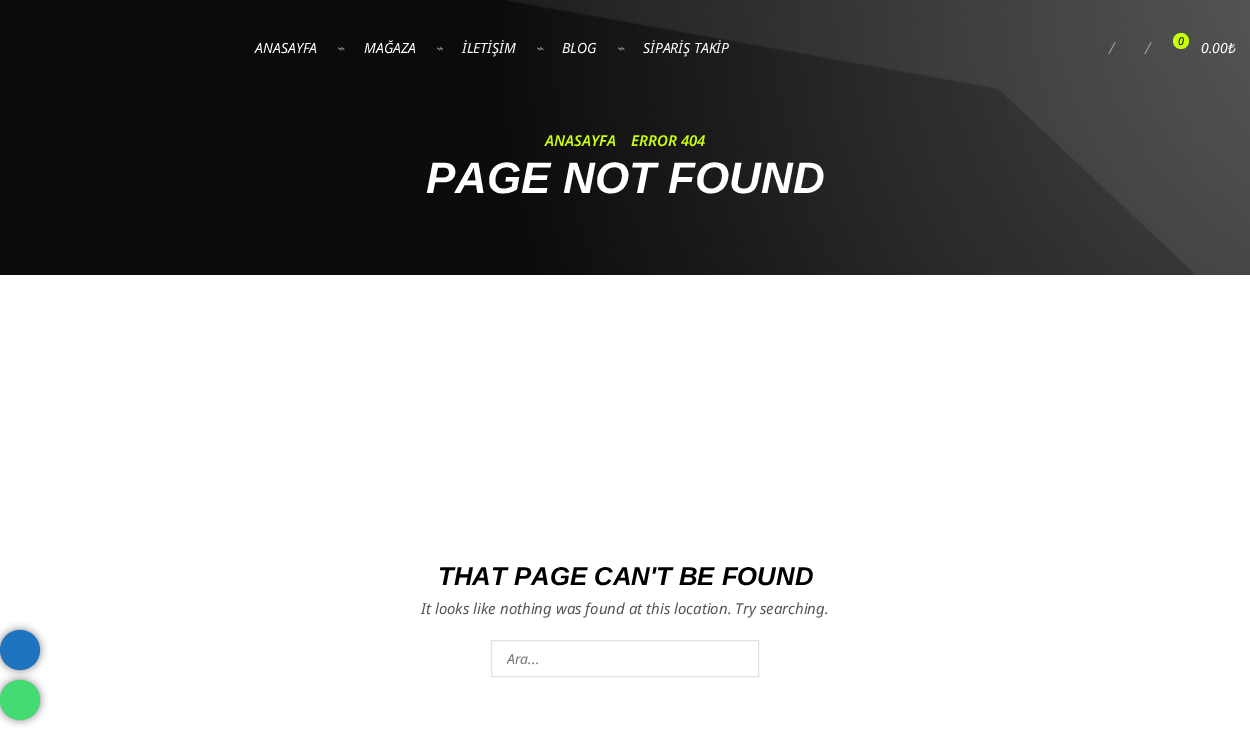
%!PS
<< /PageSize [1250 740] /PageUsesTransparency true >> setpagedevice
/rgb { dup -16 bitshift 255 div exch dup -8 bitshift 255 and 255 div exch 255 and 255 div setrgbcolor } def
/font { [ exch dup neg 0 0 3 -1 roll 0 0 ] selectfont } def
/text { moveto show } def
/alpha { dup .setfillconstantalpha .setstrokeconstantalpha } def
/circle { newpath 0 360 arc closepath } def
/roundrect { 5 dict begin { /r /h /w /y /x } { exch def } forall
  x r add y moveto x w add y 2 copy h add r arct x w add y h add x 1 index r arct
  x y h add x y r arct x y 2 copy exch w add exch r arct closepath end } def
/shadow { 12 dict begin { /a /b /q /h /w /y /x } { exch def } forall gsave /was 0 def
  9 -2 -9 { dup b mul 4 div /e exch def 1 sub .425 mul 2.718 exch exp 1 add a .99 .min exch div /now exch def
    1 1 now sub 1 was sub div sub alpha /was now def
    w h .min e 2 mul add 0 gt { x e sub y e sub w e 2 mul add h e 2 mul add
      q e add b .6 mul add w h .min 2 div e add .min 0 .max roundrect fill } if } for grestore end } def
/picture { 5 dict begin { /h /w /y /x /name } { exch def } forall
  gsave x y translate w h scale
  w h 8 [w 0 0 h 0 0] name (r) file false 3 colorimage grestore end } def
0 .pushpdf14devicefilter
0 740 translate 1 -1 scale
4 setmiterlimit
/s1 { /NotoSans-Italic 14 font 16#FFFFFF rgb } def
/s2 { /DejaVuSans-Italic 14 font 16#858585 rgb } def
/s3 { /DejaVuSans-Italic 14 font 16#8B8B8B rgb } def
/s4 { /Roboto-Italic 15 font 16#A4A4A4 rgb } def
/s5 { /NotoSans-Italic 11 font 16#000000 rgb } def
/s6 { /NotoSans-SemiBoldItalic 15 font 16#C8FF0B rgb } def
/s7 { /LiberationSans-BoldItalic 44 font 16#FFFFFF rgb } def
/s8 { /LiberationSans-BoldItalic 25.75 font 16#000000 rgb } def
/s9 { /NotoSans-Italic 15 font 16#555555 rgb } def
/s10 { /NotoSans-Italic 14 font 16#757575 rgb } def
16#FFFFFF rgb
0 0 1250 740 rectfill
16#000000 rgb
0 630 40 40 20 4 0.5 shadow
16#1E73BE rgb
20 650 20 circle fill
16#000000 rgb
0 680 40 40 20 4 0.5 shadow
16#43DB71 rgb
20 700 20 circle fill
(pic1.raw) 0 0 1250 275 picture
s1
(ANASAYFA) 255 53 text
s2
(⌁) 336 53 text
s1
(MAĞAZA) 364 53 text
gsave
435 41 8 14 rectclip
s2
(⌁) 435 53 text
grestore
(İLETİŞİM) 462 53 text
s2
(⌁) 535 53 text
s1
(BLOG) 562 53 text
s3
(⌁) 616 53 text
s1
(SİPARİŞ TAKİP) 643 53 text
s4
(/) 1109 53 text
(/) 1145 53 text
16#C8FF0B rgb
1181 41 8 circle fill
s5
(0) 1178 45 text
s1
(0.00₺) 1201 53 text
s6
(ANASAYFA) 545 146 text
(ERROR 404) 631 146 text
s7
(PAGE NOT FOUND) 426 193 text
s8
(THAT PAGE CAN'T BE FOUND) 438 585 text
s9
(It looks like nothing was found at this location. Try searching.) 421 614 text
16#E1E1E1 rgb
491.5 640.5 267 36 rectstroke
gsave
507 649 200 19 rectclip
s10
(Ara...) 507 664 text
grestore
.poppdf14devicefilter showpage
